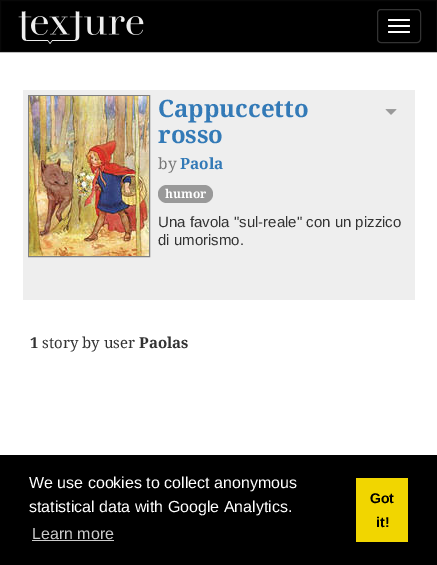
%!PS
<< /PageSize [437 565] >> setpagedevice
/rgb { dup -16 bitshift 255 div exch dup -8 bitshift 255 and 255 div exch 255 and 255 div setrgbcolor } def
/font { [ exch dup neg 0 0 3 -1 roll 0 0 ] selectfont } def
/text { moveto show } def
/roundrect { 5 dict begin { /r /h /w /y /x } { exch def } forall
  x r add y moveto x w add y 2 copy h add r arct x w add y h add x 1 index r arct
  x y h add x y r arct x y 2 copy exch w add exch r arct closepath end } def
/picture { 5 dict begin { /h /w /y /x /name } { exch def } forall
  gsave x y translate w h scale
  w h 8 [w 0 0 h 0 0] name (r) file false 3 colorimage grestore end } def
0 565 translate 1 -1 scale
4 setmiterlimit
/s1 { /NotoSerif-Bold 24 font 16#337AB7 rgb } def
/s2 { /NotoSerif-Regular 15.5 font 16#777777 rgb } def
/s3 { /NotoSerif-Bold 15.5 font 16#337AB7 rgb } def
/s4 { /NotoSerif-Bold 12 font 16#FFFFFF rgb } def
/s5 { /LiberationSans-Regular 15 font 16#333333 rgb } def
/s6 { /NotoSerif-Bold 15 font 16#333333 rgb } def
/s7 { /NotoSerif-Regular 15 font 16#333333 rgb } def
/s8 { /LiberationSans-Regular 16 font 16#FFFFFF rgb } def
/s9 { /LiberationSans-Regular 16 font 16#CCCCCC rgb } def
/s10 { /LiberationSans-Bold 14 font 16#000000 rgb } def
16#FFFFFF rgb
0 0 437 565 rectfill
16#000000 rgb
0.5 0.5 moveto 436.5 0.5 lineto 436.5 51.5 lineto 0.5 51.5 lineto closepath gsave fill grestore
16#080808 rgb
stroke
(pic1.raw) 18 11 126 33 picture
16#333333 rgb
377.5 9.5 43 33 3.5 roundrect stroke
16#FFFFFF rgb
388 19 22 2 1 roundrect fill
388 25 22 2 1 roundrect fill
388 31 22 2 1 roundrect fill
16#EEEEEE rgb
23 90 392 210 rectfill
16#808080 rgb
28.5 95.5 121 161 rectstroke
(pic2.raw) 29 96 120 160 picture
s1
(Cappuccetto) 158 117 text
(rosso) 158 143 text
s2
(by) 158 169 text
s3
(Paola) 180 169 text
(pic3.raw) 385 109 12 6 picture
16#999999 rgb
158 185 55 18 9 roundrect fill
s4
(humor) 165 198 text
s5
(Una favola "sul-reale" con un pizzico) 158 227 text
(di umorismo.) 158 245 text
s6
(1) 30 348 text
s7
(story by user) 42 348 text
s6
(Paolas) 139 348 text
16#000000 rgb
0 455 437 110 rectfill
s8
(We use cookies to collect anonymous) 29 488 text
(statistical data with Google Analytics.) 29 512 text
s9
(Learn more) 32 539 text
32 540 82 1 rectfill
16#F1D600 rgb
356 478 52 64 rectfill
s10
(Got) 370 503 text
(it!) 376 527 text
showpage
